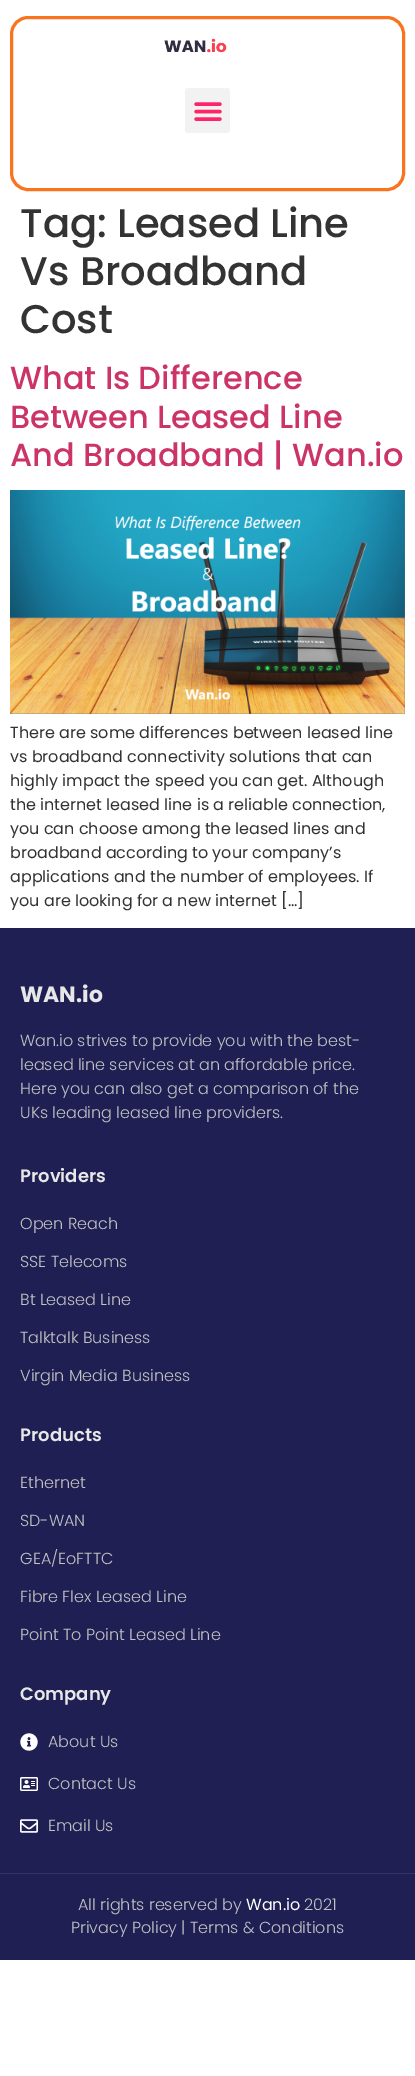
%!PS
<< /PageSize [415 2076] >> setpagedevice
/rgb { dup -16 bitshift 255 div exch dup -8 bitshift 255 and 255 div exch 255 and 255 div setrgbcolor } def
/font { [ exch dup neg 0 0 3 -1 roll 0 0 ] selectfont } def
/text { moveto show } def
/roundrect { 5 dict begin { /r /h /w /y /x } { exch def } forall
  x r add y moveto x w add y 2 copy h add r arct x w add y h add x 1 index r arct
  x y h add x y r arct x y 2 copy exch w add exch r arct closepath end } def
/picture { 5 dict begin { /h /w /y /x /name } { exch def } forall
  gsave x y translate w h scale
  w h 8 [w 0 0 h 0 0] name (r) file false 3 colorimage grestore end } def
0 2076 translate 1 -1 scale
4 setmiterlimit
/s1 { /Poppins-Medium 40 font 16#333333 rgb } def
/s2 { /Poppins-Medium 32 font 16#CC3366 rgb } def
/s3 { /Poppins-Regular 16 font 16#333333 rgb } def
/s4 { /Poppins-Bold 22 font 16#E7E7E7 rgb } def
/s5 { /Poppins-Light 16 font 16#C2C2C2 rgb } def
/s6 { /Poppins-SemiBold 18 font 16#E7E7E7 rgb } def
/s7 { /Poppins-Regular 16 font 16#FFFFFF rgb } def
16#FFFFFF rgb
0 0 415 2076 rectfill
16#F97420 rgb
3 setlinewidth
11.5 17.5 392 172 16.5 roundrect stroke
(pic1.raw) 164 38 63 15 picture
16#F2F2F2 rgb
185 88 45 45 3 roundrect fill
(pic2.raw) 194 102 28 19 picture
s1
(Tag: Leased Line) 20 237 text
(Vs Broadband) 20 285 text
(Cost) 20 333 text
s2
(What Is Difference) 10 389 text
(Between Leased Line) 10 428 text
(And Broadband | Wan.io) 10 466 text
(pic3.raw) 10 490 395 224 picture
s3
(There are some differences between leased line) 10 738 text
(vs broadband connectivity solutions that can) 10 762 text
(highly impact the speed you can get. Although) 10 786 text
(the internet leased line is a reliable connection,) 10 810 text
(you can choose among the leased lines and) 10 834 text
(broadband according to your company’s) 10 858 text
(applications and the number of employees. If) 10 882 text
(you are looking for a new internet […]) 10 906 text
16#1F1F53 rgb
0 928 415 1032 rectfill
s4
(WAN.io) 20 1002 text
s5
(Wan.io strives to provide you with the best-) 20 1046 text
(leased line services at an affordable price.) 20 1070 text
(Here you can also get a comparison of the) 20 1094 text
(UKs leading leased line providers.) 20 1118 text
s6
(Providers) 20 1182 text
s5
(Open Reach) 20 1229 text
(SSE Telecoms) 20 1267 text
(Bt Leased Line) 20 1305 text
(Talktalk Business) 20 1343 text
(Virgin Media Business) 20 1381 text
s6
(Products) 20 1441 text
s5
(Ethernet) 20 1488 text
(SD-WAN) 20 1526 text
(GEA/EoFTTC) 20 1564 text
(Fibre Flex Leased Line) 20 1602 text
(Point To Point Leased Line) 20 1640 text
s6
(Company) 20 1700 text
(pic4.raw) 20 1733 18 18 picture
s5
(About Us) 48 1747 text
(pic5.raw) 20 1777 18 14 picture
(Contact Us) 48 1789 text
(pic6.raw) 20 1819 18 14 picture
(Email Us) 48 1831 text
16#353563 rgb
0 1873 415 1 rectfill
s5
(All rights reserved by) 78 1910 text
s7
(Wan.io) 246 1910 text
s5
(2021) 304 1910 text
(Privacy Policy | Terms & Conditions) 71 1933 text
showpage
